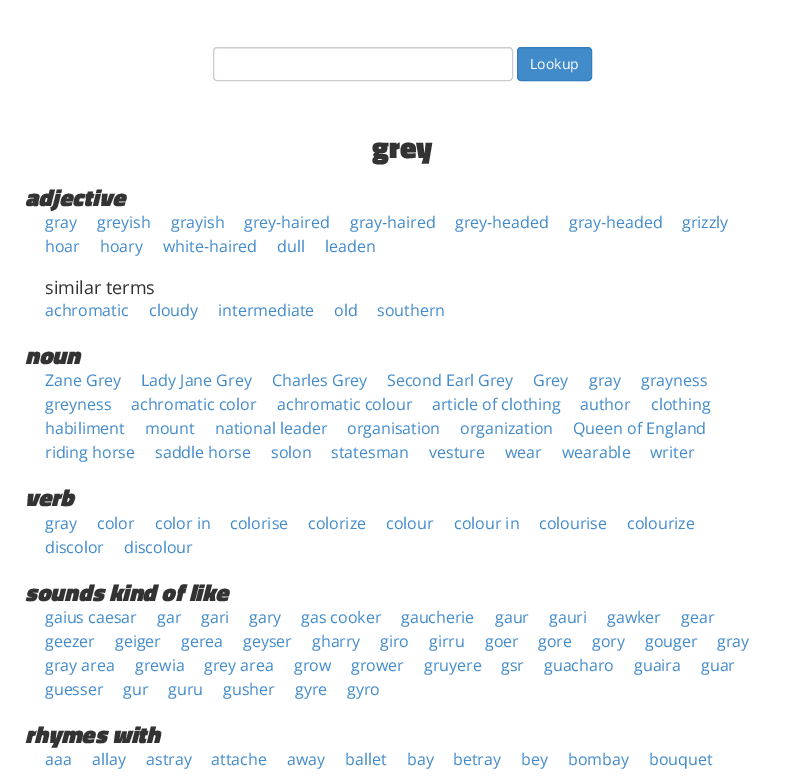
%!PS
<< /PageSize [805 780] >> setpagedevice
/rgb { dup -16 bitshift 255 div exch dup -8 bitshift 255 and 255 div exch 255 and 255 div setrgbcolor } def
/font { [ exch dup neg 0 0 3 -1 roll 0 0 ] selectfont } def
/text { moveto show } def
/roundrect { 5 dict begin { /r /h /w /y /x } { exch def } forall
  x r add y moveto x w add y 2 copy h add r arct x w add y h add x 1 index r arct
  x y h add x y r arct x y 2 copy exch w add exch r arct closepath end } def
0 780 translate 1 -1 scale
4 setmiterlimit
/s1 { /OpenSans-Regular 14 font 16#FFFFFF rgb } def
/s2 { /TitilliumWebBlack-Black 30 font 16#333333 rgb } def
/s3 { /TitilliumWebBlack-BlackItalic 24 font 16#333333 rgb } def
/s4 { /OpenSans-Regular 16 font 16#428BCA rgb } def
/s5 { /OpenSans-Regular 18 font 16#333333 rgb } def
16#FFFFFF rgb
0 0 805 780 rectfill
16#ECECEC rgb
217 49 moveto 509 49 lineto 511 49 512 50 512 52 curveto 511 49 lineto 510 48 lineto 217 48 lineto 215 48 214 50 214 52 curveto 214 50 215 49 217 49 curveto closepath fill
16#CCCCCC rgb
213.5 47.5 299 33 3.5 roundrect stroke
16#428BCA rgb
517.5 47.5 74 33 3.5 roundrect gsave fill grestore
16#357EBD rgb
stroke
s1
(Lookup) 530 69 text
s2
(grey) 372 158 text
s3
(adjective) 25 206 text
s4
(gray) 45 228 text
(greyish) 97 228 text
(grayish) 171 228 text
(grey-haired) 244 228 text
(gray-haired) 350 228 text
(grey-headed) 455 228 text
(gray-headed) 569 228 text
(grizzly) 682 228 text
(hoar) 45 252 text
(hoary) 100 252 text
(white-haired) 163 252 text
(dull) 277 252 text
(leaden) 325 252 text
s5
(similar terms) 45 294 text
s4
(achromatic) 45 316 text
(cloudy) 149 316 text
(intermediate) 218 316 text
(old) 334 316 text
(southern) 377 316 text
s3
(noun) 25 364 text
s4
(Zane Grey) 45 386 text
(Lady Jane Grey) 141 386 text
(Charles Grey) 272 386 text
(Second Earl Grey) 387 386 text
(Grey) 533 386 text
(gray) 589 386 text
(grayness) 641 386 text
(greyness) 45 410 text
(achromatic color) 131 410 text
(achromatic colour) 277 410 text
(article of clothing) 432 410 text
(author) 580 410 text
(clothing) 651 410 text
(habiliment) 45 434 text
(mount) 145 434 text
(national leader) 215 434 text
(organisation) 347 434 text
(organization) 460 434 text
(Queen of England) 573 434 text
(riding horse) 45 458 text
(saddle horse) 155 458 text
(solon) 271 458 text
(statesman) 331 458 text
(vesture) 429 458 text
(wear) 505 458 text
(wearable) 562 458 text
(writer) 650 458 text
s3
(verb) 25 506 text
s4
(gray) 45 529 text
(color) 97 529 text
(color in) 155 529 text
(colorise) 230 529 text
(colorize) 308 529 text
(colour) 386 529 text
(colour in) 454 529 text
(colourise) 539 529 text
(colourize) 627 529 text
(discolor) 45 553 text
(discolour) 124 553 text
s3
(sounds kind of like) 25 601 text
s4
(gaius caesar) 45 623 text
(gar) 157 623 text
(gari) 201 623 text
(gary) 249 623 text
(gas cooker) 301 623 text
(gaucherie) 401 623 text
(gaur) 495 623 text
(gauri) 549 623 text
(gawker) 607 623 text
(gear) 681 623 text
(geezer) 45 647 text
(geiger) 115 647 text
(gerea) 181 647 text
(geyser) 243 647 text
(gharry) 312 647 text
(giro) 380 647 text
(girru) 429 647 text
(goer) 485 647 text
(gore) 538 647 text
(gory) 592 647 text
(gouger) 645 647 text
(gray) 717 647 text
(gray area) 45 671 text
(grewia) 135 671 text
(grey area) 204 671 text
(grow) 294 671 text
(grower) 351 671 text
(gruyere) 424 671 text
(gsr) 501 671 text
(guacharo) 544 671 text
(guaira) 634 671 text
(guar) 701 671 text
(guesser) 45 695 text
(gur) 123 695 text
(guru) 168 695 text
(gusher) 223 695 text
(gyre) 295 695 text
(gyro) 347 695 text
s3
(rhymes with) 25 743 text
s4
(aaa) 45 765 text
(allay) 92 765 text
(astray) 146 765 text
(attache) 211 765 text
(away) 287 765 text
(ballet) 345 765 text
(bay) 407 765 text
(betray) 453 765 text
(bey) 521 765 text
(bombay) 568 765 text
(bouquet) 649 765 text
showpage
